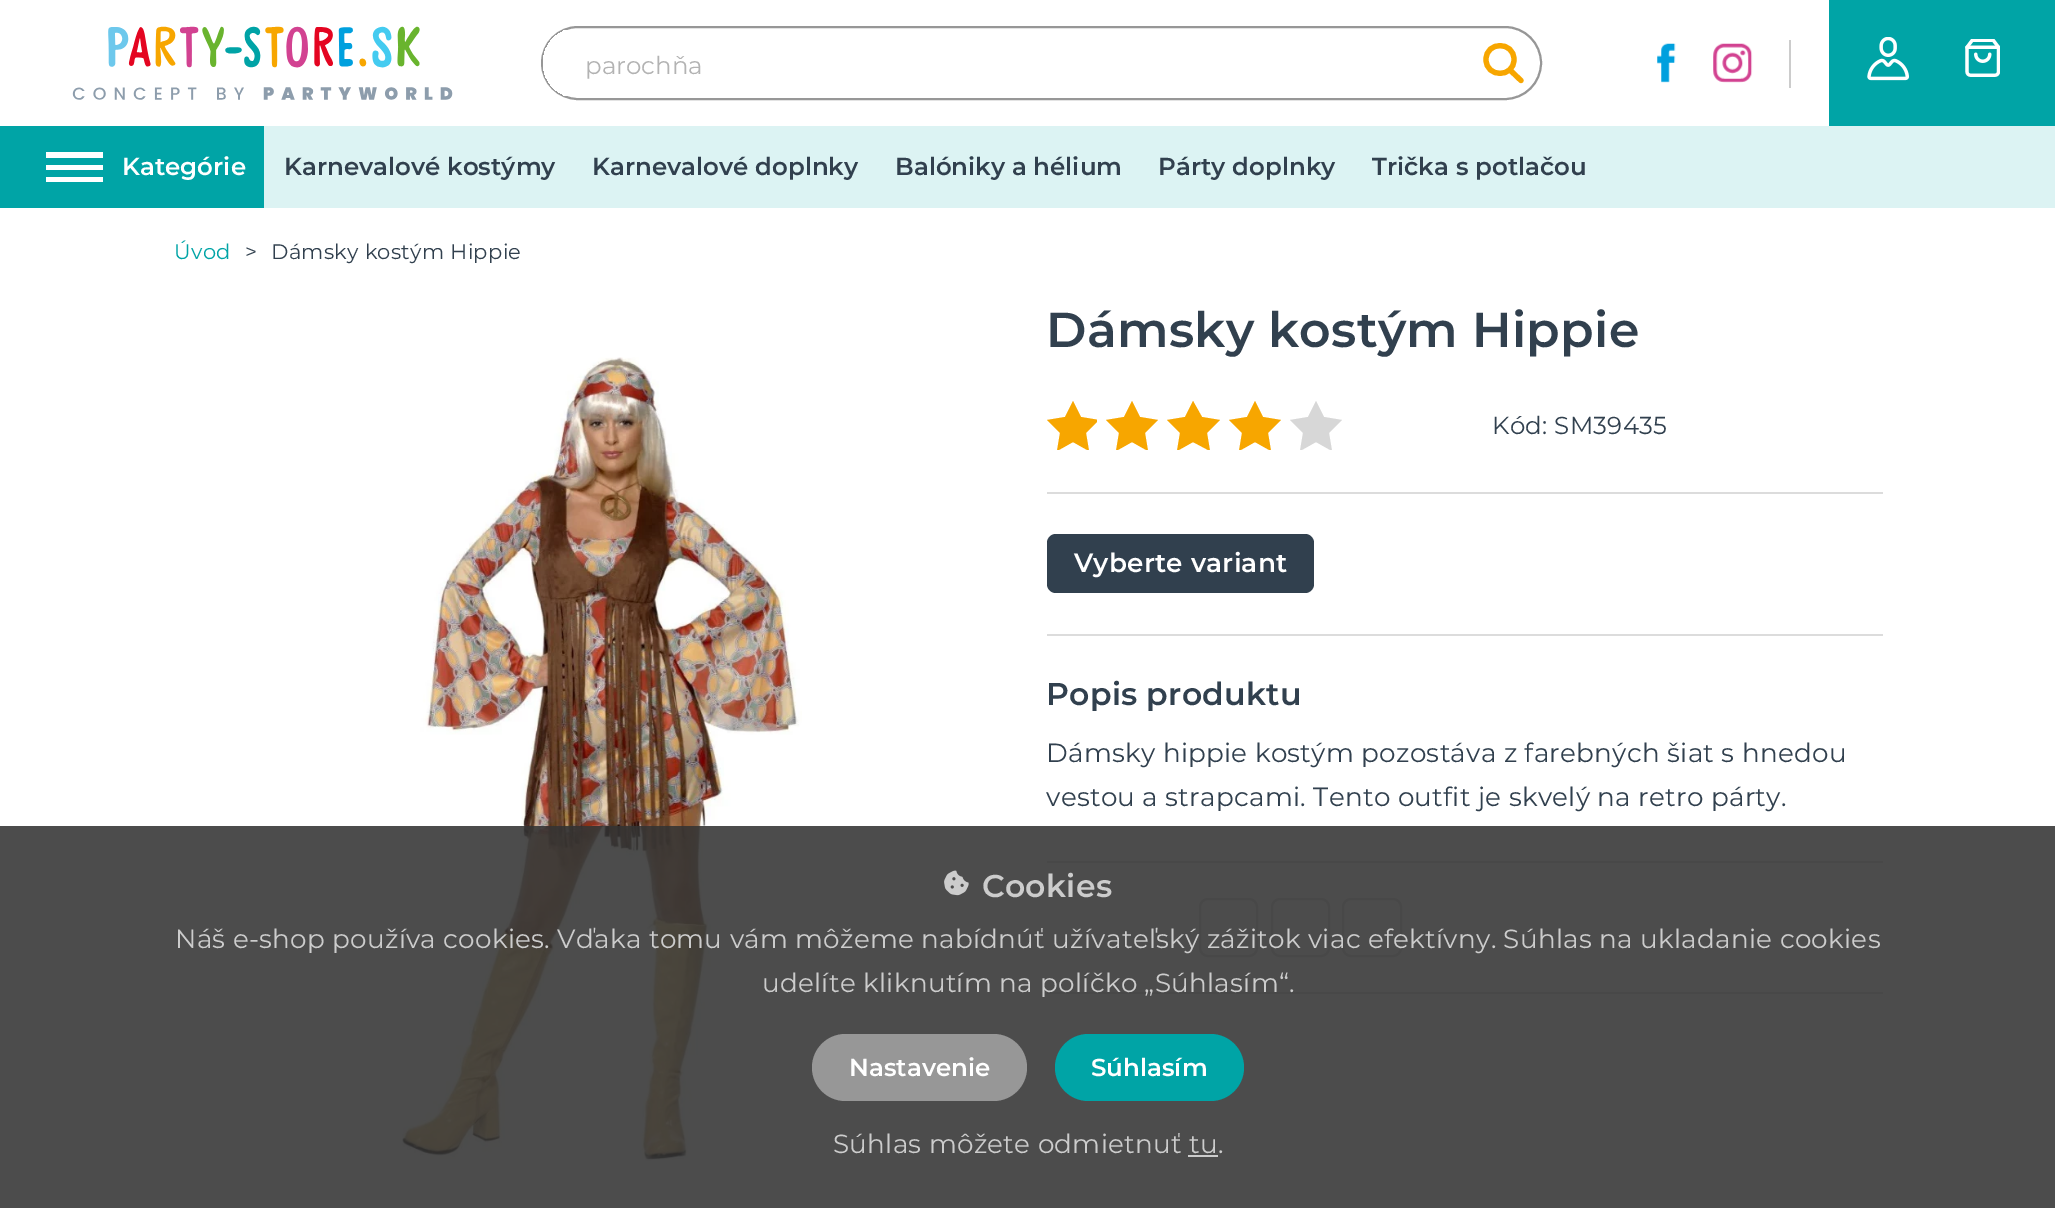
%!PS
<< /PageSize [2055 1208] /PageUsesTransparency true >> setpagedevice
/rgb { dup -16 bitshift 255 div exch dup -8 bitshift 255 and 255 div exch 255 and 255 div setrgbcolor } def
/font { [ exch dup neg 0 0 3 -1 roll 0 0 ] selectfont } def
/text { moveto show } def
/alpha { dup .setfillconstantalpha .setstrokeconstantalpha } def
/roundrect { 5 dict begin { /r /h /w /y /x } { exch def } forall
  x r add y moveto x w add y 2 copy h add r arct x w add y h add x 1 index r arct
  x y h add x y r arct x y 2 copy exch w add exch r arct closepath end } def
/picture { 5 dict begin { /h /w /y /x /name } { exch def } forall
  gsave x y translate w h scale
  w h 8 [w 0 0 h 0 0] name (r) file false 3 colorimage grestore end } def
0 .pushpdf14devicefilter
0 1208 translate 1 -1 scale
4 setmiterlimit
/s1 { /Montserrat-Regular 24.5 font 16#B3B3B3 rgb } def
/s2 { /Montserrat-SemiBold 24.5 font 16#FFFFFF rgb } def
/s3 { /Montserrat-SemiBold 24.5 font 16#31404E rgb } def
16#FFFFFF rgb
0 0 2055 1208 rectfill
(pic1.raw) 72 26 381 74 picture
16#979797 rgb
2 setlinewidth
542 27 999 72 36 roundrect stroke
gsave
543 28 997 70 35 roundrect clip newpath
16#FFFFFF rgb
543 30 924 66 9 roundrect fill
grestore
s1
(parochňa) 585 74 text
16#F7A600 rgb
5.2 setlinewidth
1 setlinecap
1 setlinejoin
1514 59.5 moveto 1514 78 1486 78 1486 59.5 curveto 1486 41 1514 41 1514 59.5 curveto closepath 1521 80.5 moveto 1510 70 lineto stroke
(pic2.raw) 1657 43 19 40 picture
(pic3.raw) 1713 43 40 40 picture
16#CCCCCC rgb
1789 40 2 48 rectfill
16#00A4A6 rgb
1829 0 226 126 rectfill
(pic4.raw) 1867 37 42 44 picture
(pic5.raw) 1965 39 35 38 picture
16#DCF3F3 rgb
264 126 1791 82 rectfill
16#00A4A6 rgb
0 126 264 82 rectfill
16#FFFFFF rgb
46 152 57 6 rectfill
46 165 57 5 rectfill
46 177 57 5 rectfill
s2
(Kategórie) 122 175 text
s3
(Karnevalové kostýmy) 284 175 text
(Karnevalové doplnky) 592 175 text
(Balóniky a hélium) 895 175 text
(Párty doplnky) 1158 175 text
(Trička s potlačou) 1372 175 text
/Montserrat-Regular 21 font
16#00A4A6 rgb
174 259 moveto 0.28 0 (Úvod) ashow
16#31404E rgb
245 259 moveto 0.28 0 (>) ashow
271 259 moveto 0.28 0 (Dámsky kostým Hippie) ashow
(pic6.raw) 402 357 400 804 picture
/Montserrat-SemiBold 49 font
1046 347 moveto 0.28 0 (Dámsky kostým Hippie) ashow
gsave
1047 401 50 49 rectclip
16#F7A600 rgb
1073 401 moveto 1081 417 lineto 1099 420 lineto 1086 433 lineto 1089 451 lineto 1073 442 lineto 1057 451 lineto 1060 433 lineto 1047 420 lineto 1065 417 lineto closepath fill
grestore
gsave
1106 401 53 49 rectclip
16#F7A600 rgb
1132 401 moveto 1140 417 lineto 1158 420 lineto 1145 433 lineto 1148 451 lineto 1132 442 lineto 1116 451 lineto 1119 433 lineto 1106 420 lineto 1124 417 lineto closepath fill
grestore
gsave
1167 401 53 49 rectclip
16#F7A600 rgb
1193 401 moveto 1202 417 lineto 1220 420 lineto 1207 433 lineto 1210 451 lineto 1193 442 lineto 1177 451 lineto 1180 433 lineto 1167 420 lineto 1185 417 lineto closepath fill
grestore
gsave
1229 401 52 49 rectclip
16#F7A600 rgb
1255 401 moveto 1263 417 lineto 1281 420 lineto 1268 433 lineto 1271 451 lineto 1255 442 lineto 1239 451 lineto 1242 433 lineto 1229 420 lineto 1247 417 lineto closepath fill
grestore
gsave
1290 401 52 49 rectclip
16#D7D7D7 rgb
1316 401 moveto 1324 417 lineto 1342 420 lineto 1329 433 lineto 1332 451 lineto 1316 442 lineto 1300 451 lineto 1303 433 lineto 1290 420 lineto 1308 417 lineto closepath fill
grestore
/Montserrat-Regular 24.5 font
1492 434 moveto 0.28 0 (Kód: SM39435) ashow
16#DCDCDC rgb
1047 492 836 2 rectfill
1047 634 836 2 rectfill
16#31404E rgb
1047 534 267 59 9 roundrect fill
/Montserrat-SemiBold 26.25 font
16#FFFFFF rgb
1074 572 moveto 0.28 0 (Vyberte variant) ashow
/Montserrat-SemiBold 31.5 font
16#31404E rgb
1046 705 moveto 0.28 0 (Popis produktu) ashow
/Montserrat-Regular 26.25 font
1046 762 moveto 0.28 0 (Dámsky hippie kostým pozostáva z farebných šiat s hnedou) ashow
1046 806 moveto 0.28 0 (vestou a strapcami. Tento outfit je skvelý na retro párty.) ashow
16#DCDCDC rgb
1047 861 836 2 rectfill
1047 992 836 2 rectfill
2 setlinewidth
0 setlinecap
0 setlinejoin
1200 899 57 57 8 roundrect stroke
1272 899 57 57 8 roundrect stroke
1343 899 58 57 8 roundrect stroke
0.88 alpha
16#333333 rgb
0 826 2055 382 rectfill
1 alpha
(pic7.raw) 944 870 25 26 picture
/Montserrat-SemiBold 31.5 font
16#CCCCCC rgb
982 897 moveto 0.28 0 (Cookies) ashow
/Montserrat-Regular 26.25 font
175 948 moveto 0.28 0 (Náš e-shop používa cookies. Vďaka tomu vám môžeme nabídnúť užívateľský zážitok viac efektívny. Súhlas na ukladanie cookies) ashow
762 992 moveto 0.28 0 (udelíte kliknutím na políčko „Súhlasím“.) ashow
16#979797 rgb
812 1034 215 67 33.5 roundrect fill
s2
(Nastavenie) 849 1076 text
16#00A4A6 rgb
1055 1034 189 67 33.5 roundrect fill
s2
(Súhlasím) 1091 1076 text
/Montserrat-Regular 26.25 font
16#CCCCCC rgb
833 1153 moveto 0.28 0 (Súhlas môžete odmietnuť tu.) ashow
1188 1155 30 2 rectfill
.poppdf14devicefilter showpage
